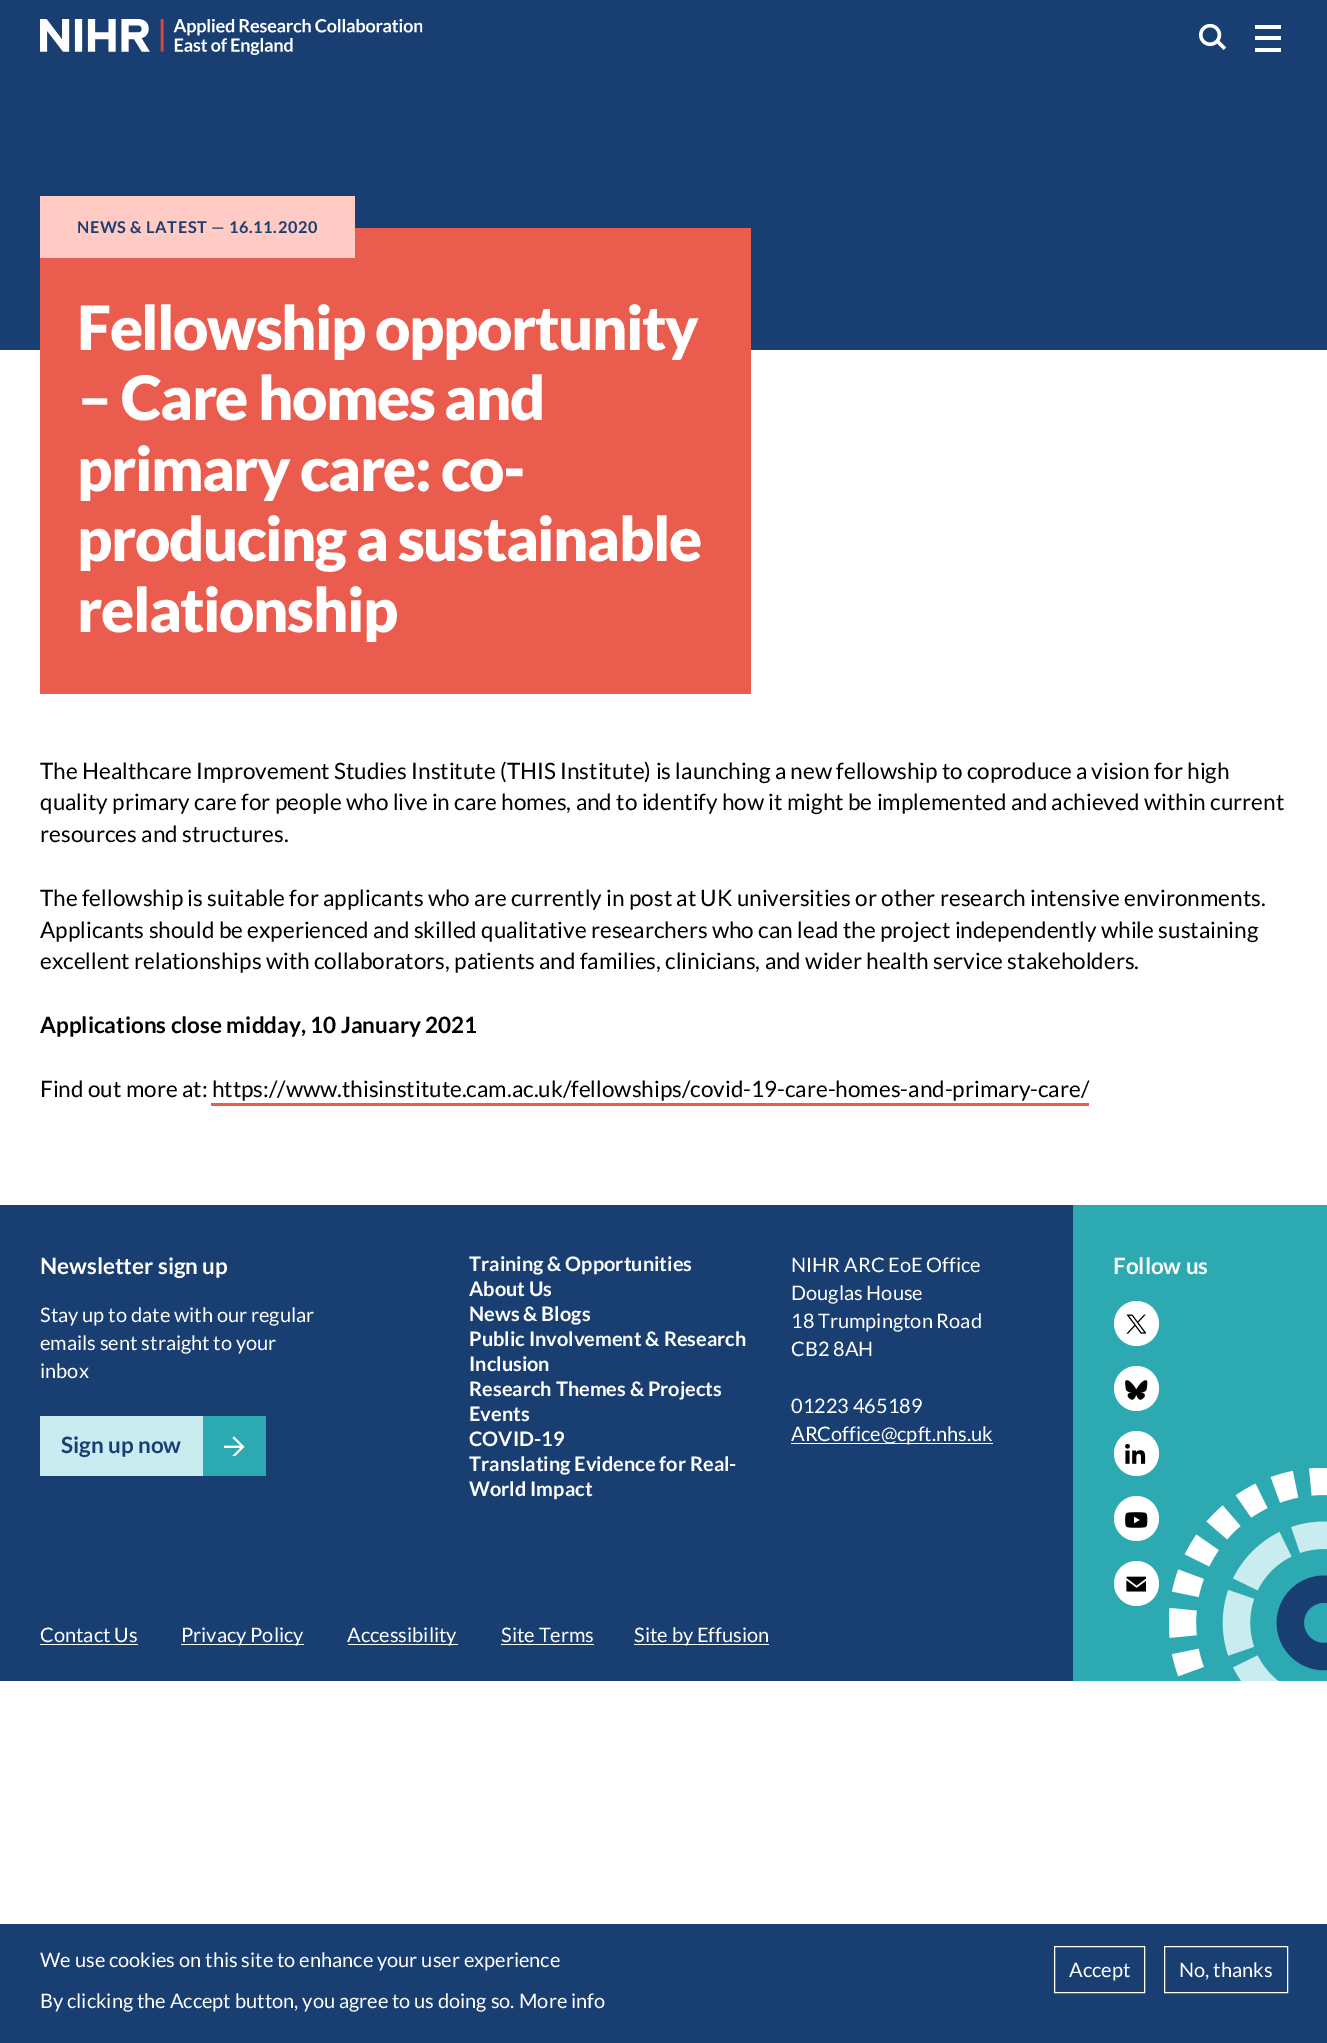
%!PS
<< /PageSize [1327 2043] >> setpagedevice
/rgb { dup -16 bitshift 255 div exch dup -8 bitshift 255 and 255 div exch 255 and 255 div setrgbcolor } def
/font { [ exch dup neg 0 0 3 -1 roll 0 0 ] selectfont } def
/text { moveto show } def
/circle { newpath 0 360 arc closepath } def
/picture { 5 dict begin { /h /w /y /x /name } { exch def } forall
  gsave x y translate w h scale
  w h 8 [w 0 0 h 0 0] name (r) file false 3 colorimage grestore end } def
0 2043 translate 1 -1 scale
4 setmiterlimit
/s1 { /Lato-Regular 22.5 font 16#000000 rgb } def
/s2 { /Lato-Bold 22.5 font 16#000000 rgb } def
/s3 { /Lato-Bold 22.5 font 16#FFFFFF rgb } def
/s4 { /Lato-Regular 20 font 16#FFFFFF rgb } def
/s5 { /Lato-Bold 22.5 font 16#193E72 rgb } def
/s6 { /Lato-Bold 20 font 16#FFFFFF rgb } def
16#FFFFFF rgb
0 0 1327 2043 rectfill
16#193E72 rgb
0 0 1327 350 rectfill
(pic1.raw) 40 19 383 36 picture
(pic2.raw) 1199 24 27 26 picture
16#FFFFFF rgb
1255 25 26 4 rectfill
1255 36 26 4 rectfill
1255 48 26 4 rectfill
16#EA5D4E rgb
40 228 711 466 rectfill
16#FFCBC4 rgb
40 196 315 62 rectfill
/Lato-Bold 16.25 font
16#193E72 rgb
77 233 moveto 0.6 0 (NEWS & LATEST — 16.11.2020) ashow
/Lato-Black 61.25 font
16#FFFFFF rgb
77 350 moveto -1.5 0 (Fellowship opportunity) ashow
77 420 moveto -1.5 0 (– Care homes and) ashow
77 491 moveto -1.5 0 (primary care: co-) ashow
77 561 moveto -1.5 0 (producing a sustainable) ashow
77 632 moveto -1.5 0 (relationship) ashow
s1
(The Healthcare Improvement Studies Institute \(THIS Institute\) is launching a new fellowship to coproduce a vision for high) 40 779 text
(quality primary care for people who live in care homes, and to identify how it might be implemented and achieved within current) 40 810 text
(resources and structures.) 40 842 text
(The fellowship is suitable for applicants who are currently in post at UK universities or other research intensive environments.) 40 906 text
(Applicants should be experienced and skilled qualitative researchers who can lead the project independently while sustaining) 40 938 text
(excellent relationships with collaborators, patients and families, clinicians, and wider health service stakeholders.) 40 969 text
s2
(Applications close midday, 10 January 2021) 40 1033 text
s1
(Find out more at: https://www.thisinstitute.cam.ac.uk/fellowships/covid-19-care-homes-and-primary-care/) 40 1097 text
16#EA5D4E rgb
211 1103 878 3 rectfill
16#193E72 rgb
0 1205 1073 476 rectfill
s3
(Newsletter sign up) 40 1274 text
s4
(Stay up to date with our regular) 40 1322 text
(emails sent straight to your) 40 1350 text
(inbox) 40 1378 text
16#C8ECF0 rgb
40 1416 163 60 rectfill
s5
(Sign up now) 61 1453 text
16#2DAAB1 rgb
203 1416 63 60 rectfill
(pic3.raw) 224 1436 21 20 picture
s6
(Training & Opportunities) 469 1271 text
(About Us) 469 1296 text
(News & Blogs) 469 1321 text
(Public Involvement & Research) 469 1346 text
(Inclusion) 469 1371 text
(Research Themes & Projects) 469 1396 text
(Events) 469 1421 text
(COVID-19) 469 1446 text
(Translating Evidence for Real-) 469 1471 text
(World Impact) 469 1496 text
s4
(NIHR ARC EoE Office) 791 1272 text
(Douglas House) 791 1300 text
(18 Trumpington Road) 791 1328 text
(CB2 8AH) 791 1356 text
(01223 465189) 791 1413 text
791 1443 202 1 rectfill
(ARCoffice@cpft.nhs.uk) 791 1441 text
(Contact Us) 40 1642 text
40 1644 98 1 rectfill
181 1644 123 1 rectfill
(Privacy Policy) 181 1642 text
348 1644 110 1 rectfill
(Accessibility) 347 1642 text
(Site Terms) 501 1642 text
501 1644 93 1 rectfill
634 1644 135 1 rectfill
(Site by Effusion) 634 1642 text
16#2DAAB1 rgb
1073 1205 254 476 rectfill
s3
(Follow us) 1113 1274 text
1136.5 1323.5 22.5 circle fill
(pic4.raw) 1126 1314 20 20 picture
1136.5 1388.5 22.5 circle fill
(pic5.raw) 1125 1380 23 20 picture
1136.5 1453.5 22.5 circle fill
(pic6.raw) 1125 1444 21 20 picture
1136.5 1518.5 22.5 circle fill
(pic7.raw) 1125 1512 23 16 picture
1136.5 1583.5 22.5 circle fill
(pic8.raw) 1126 1576 20 16 picture
(pic9.raw) 1169 1468 158 213 picture
16#193E72 rgb
0 1924 1327 119 rectfill
s4
(We use cookies on this site to enhance your user experience) 40 1967 text
(By clicking the Accept button, you agree to us doing so.) 40 2008 text
(More info) 519 2008 text
1054.5 1946.5 90 46 rectstroke
(Accept) 1069 1977 text
1164.5 1946.5 123 46 rectstroke
(No, thanks) 1179 1977 text
showpage
